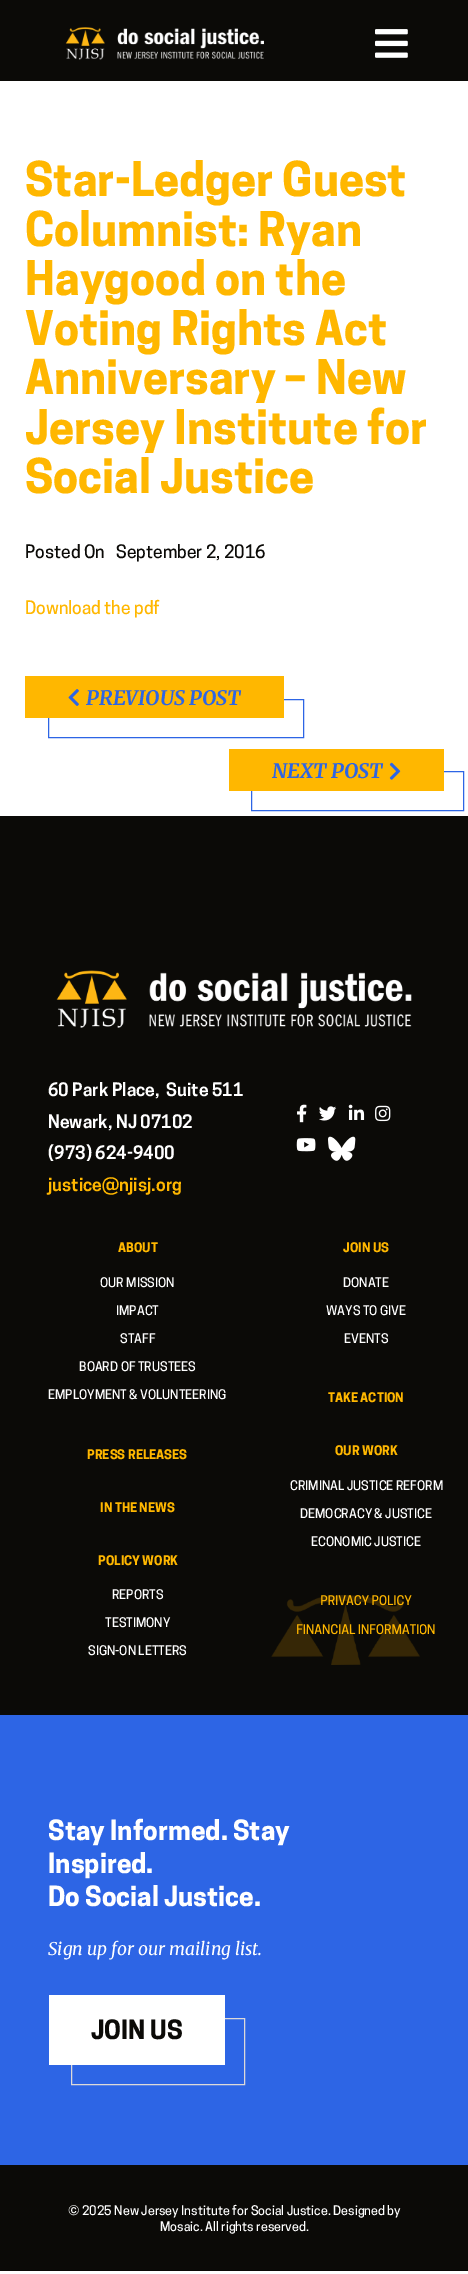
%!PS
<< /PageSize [468 2274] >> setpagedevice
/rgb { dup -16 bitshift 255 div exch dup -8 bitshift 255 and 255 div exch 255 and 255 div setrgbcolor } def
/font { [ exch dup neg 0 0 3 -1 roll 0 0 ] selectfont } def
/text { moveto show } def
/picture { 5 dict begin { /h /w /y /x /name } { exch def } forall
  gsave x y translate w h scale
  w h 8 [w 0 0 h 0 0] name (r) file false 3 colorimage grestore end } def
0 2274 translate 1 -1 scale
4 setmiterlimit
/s1 { /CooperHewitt-Bold 45 font 16#FFB700 rgb } def
/s2 { /CooperHewitt-Medium 17.5 font 16#0B0A07 rgb } def
/s3 { /CooperHewitt-Medium 17.5 font 16#FFB700 rgb } def
/s4 { /Merriweather-BoldItalic 20 font 16#2D65E5 rgb } def
/s5 { /CooperHewitt-SemiBold 17.5 font 16#FFFFFF rgb } def
/s6 { /CooperHewitt-SemiBold 17.5 font 16#FFB700 rgb } def
/s7 { /CooperHewitt-Bold 12.5 font 16#FFB700 rgb } def
/s8 { /CooperHewitt-Medium 12.5 font 16#FFFFFF rgb } def
/s9 { /CooperHewitt-Medium 12.5 font 16#FFB700 rgb } def
/s10 { /CooperHewitt-Bold 26.25 font 16#FFFFFF rgb } def
/s11 { /Merriweather-Italic 17.5 font 16#FFFFFF rgb } def
/s12 { /CooperHewitt-Bold 25 font 16#0B0A07 rgb } def
16#FFFFFF rgb
0 0 468 2274 rectfill
16#0B0A07 rgb
0 0 468 81 rectfill
(pic1.raw) 65 27 199 33 picture
(pic2.raw) 375 29 33 29 picture
s1
(Star-Ledger Guest) 25 196 text
(Columnist: Ryan) 25 246 text
(Haygood on the) 25 295 text
(Voting Rights Act) 25 345 text
(Anniversary – New) 25 394 text
(Jersey Institute for) 25 444 text
(Social Justice) 25 493 text
s2
(Posted On) 25 558 text
(September 2, 2016) 116 558 text
s3
(Download the pdf) 25 614 text
16#2D65E5 rgb
48.5 699.5 255 38 rectstroke
16#FFB700 rgb
25 676 259 42 rectfill
(pic3.raw) 68 689 11 17 picture
s4
(PREVIOUS POST) 86 705 text
251.5 771.5 212 39 rectstroke
16#FFB700 rgb
229 749 215 42 rectfill
s4
(NEXT POST) 272 778 text
(pic4.raw) 389 762 12 18 picture
16#0B0A07 rgb
0 816 468 899 rectfill
(pic5.raw) 56 970 356 58 picture
s5
(60 Park Place,  Suite 511) 48 1096 text
(Newark, NJ 07102) 48 1128 text
(\(973\) 624-9400) 48 1159 text
s6
(justice@njisj.org) 48 1191 text
(pic6.raw) 297 1104 10 19 picture
(pic7.raw) 319 1106 18 15 picture
(pic8.raw) 348 1104 17 16 picture
(pic9.raw) 375 1105 16 17 picture
(pic10.raw) 296 1138 20 14 picture
(pic11.raw) 328 1136 28 25 picture
s7
(ABOUT) 118 1252 text
s8
(OUR MISSION) 100 1287 text
(IMPACT) 116 1315 text
(STAFF) 120 1343 text
(BOARD OF TRUSTEES) 79 1371 text
(EMPLOYMENT & VOLUNTEERING) 48 1399 text
s7
(JOIN US) 343 1252 text
s8
(DONATE) 343 1287 text
(WAYS TO GIVE) 326 1315 text
(EVENTS) 344 1343 text
s7
(TAKE ACTION) 328 1402 text
(PRESS RELEASES) 87 1459 text
(OUR WORK) 335 1455 text
s8
(CRIMINAL JUSTICE REFORM) 290 1490 text
(DEMOCRACY & JUSTICE) 300 1518 text
(ECONOMIC JUSTICE) 311 1546 text
s7
(IN THE NEWS) 100 1512 text
(POLICY WORK) 98 1565 text
s8
(REPORTS) 112 1599 text
(TESTIMONY) 105 1627 text
(SIGN-ON LETTERS) 88 1655 text
s9
(PRIVACY POLICY) 320 1605 text
(FINANCIAL INFORMATION) 296 1634 text
(pic12.raw) 271 1595 149 70 picture
16#2D65E5 rgb
0 1715 468 450 rectfill
s10
(Stay Informed. Stay) 48 1840 text
(Inspired.) 48 1873 text
(Do Social Justice.) 48 1906 text
s11
(Sign up for our mailing list.) 48 1955 text
16#DDD9D8 rgb
71.5 2018.5 173 66 rectstroke
16#FFFFFF rgb
49 1995 176 70 rectfill
s12
(JOIN US) 91 2039 text
0 2165 468 106 rectfill
s8
(© 2025 New Jersey Institute for Social Justice. Designed by) 68 2215 text
(Mosaic. All rights reserved.) 160 2231 text
showpage
